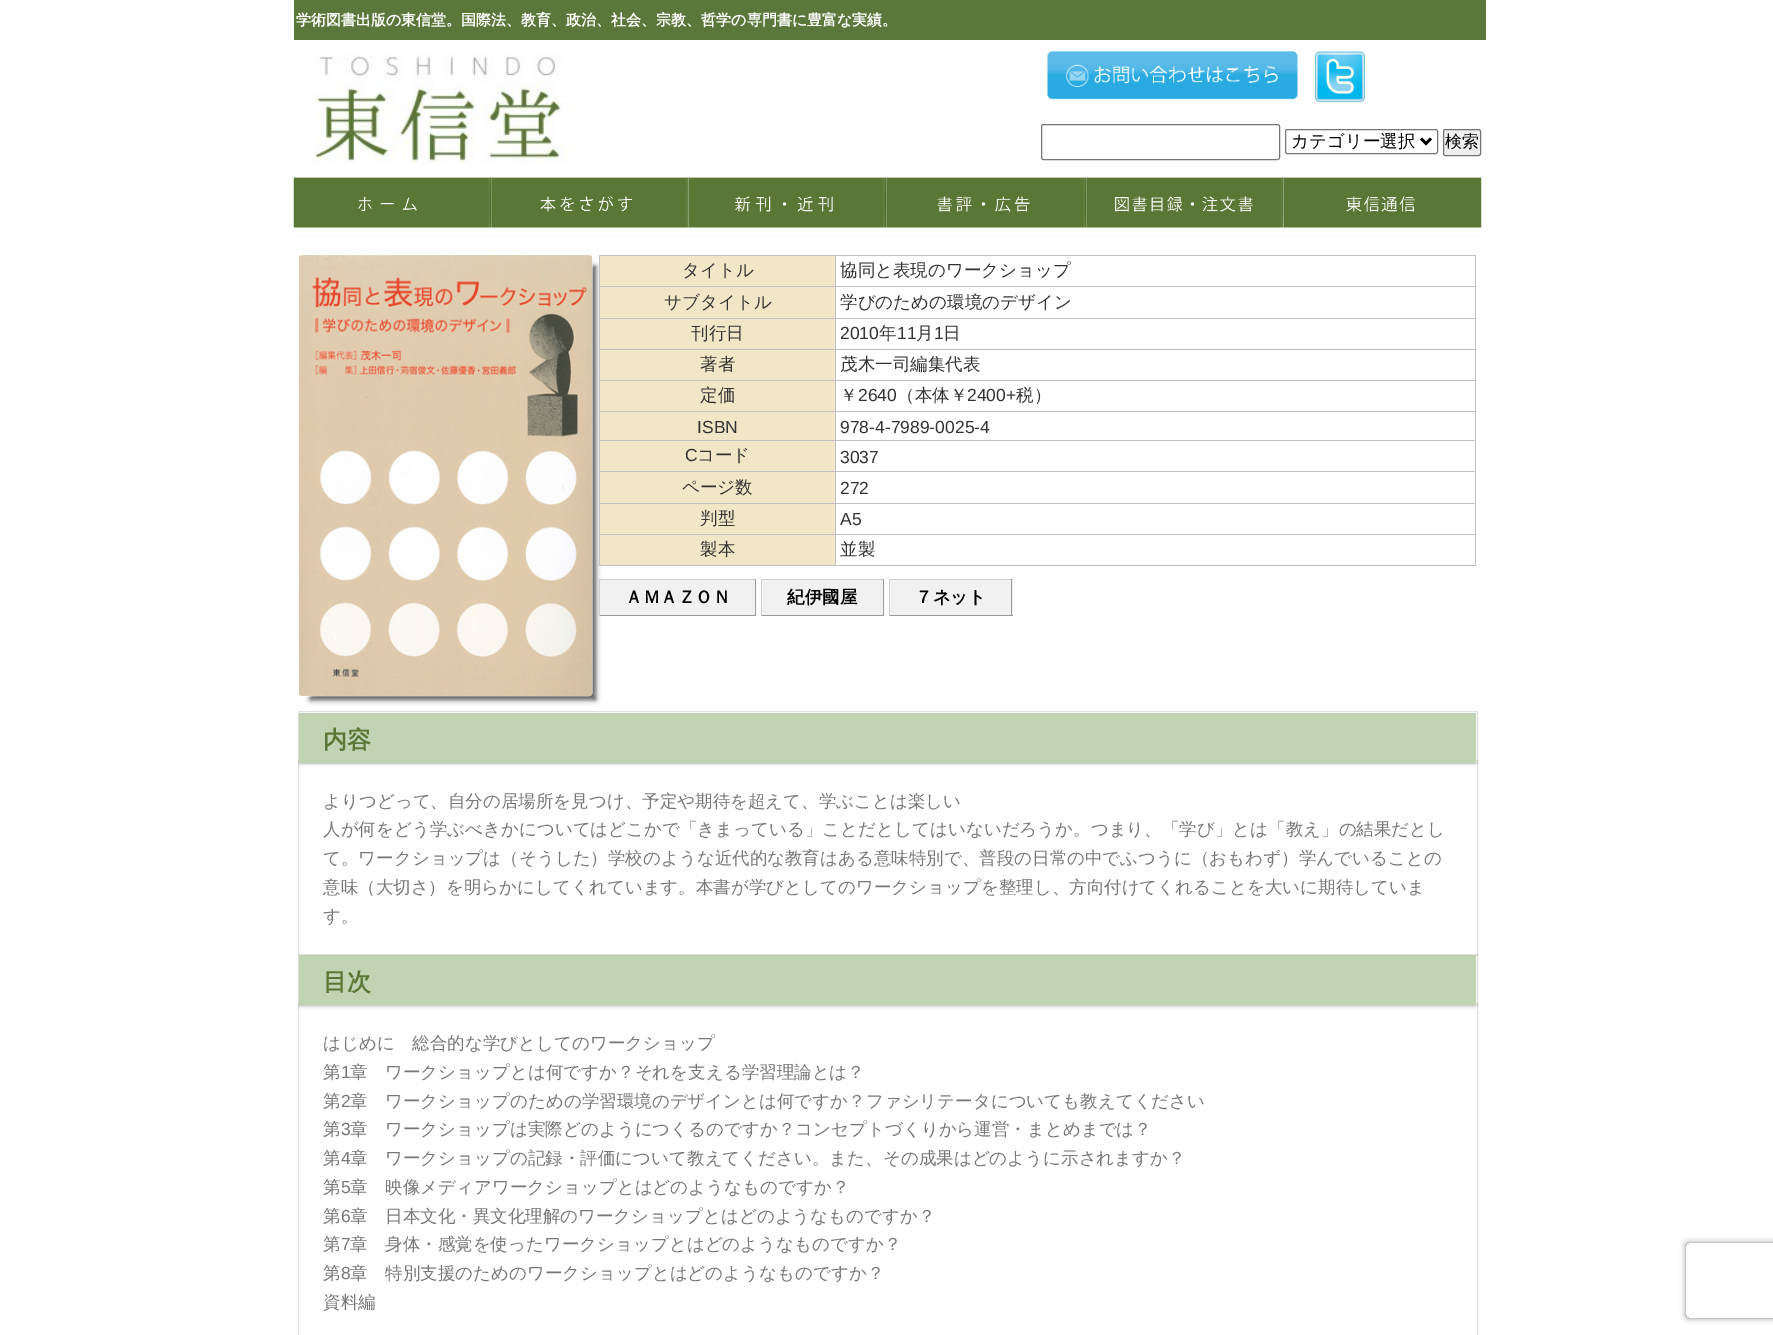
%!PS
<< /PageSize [1773 1335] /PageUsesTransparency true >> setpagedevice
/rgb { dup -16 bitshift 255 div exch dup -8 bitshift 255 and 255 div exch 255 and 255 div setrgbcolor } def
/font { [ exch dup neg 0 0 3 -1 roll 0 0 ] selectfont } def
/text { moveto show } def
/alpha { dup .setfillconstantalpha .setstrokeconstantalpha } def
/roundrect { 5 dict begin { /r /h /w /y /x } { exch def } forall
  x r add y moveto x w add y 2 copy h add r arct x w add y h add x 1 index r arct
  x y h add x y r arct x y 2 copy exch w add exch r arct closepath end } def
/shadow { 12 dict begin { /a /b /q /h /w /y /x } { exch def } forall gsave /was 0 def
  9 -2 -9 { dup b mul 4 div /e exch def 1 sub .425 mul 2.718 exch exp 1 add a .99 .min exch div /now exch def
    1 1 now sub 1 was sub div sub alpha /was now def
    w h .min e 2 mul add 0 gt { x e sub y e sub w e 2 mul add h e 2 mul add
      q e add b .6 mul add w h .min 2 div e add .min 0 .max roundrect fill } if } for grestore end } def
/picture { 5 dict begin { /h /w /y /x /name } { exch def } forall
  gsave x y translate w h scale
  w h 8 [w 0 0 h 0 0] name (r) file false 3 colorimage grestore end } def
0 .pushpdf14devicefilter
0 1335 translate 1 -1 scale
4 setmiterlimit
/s1 { /WenQuanYiZenHei-Bold 15 font 16#FFFFFF rgb } def
/s2 { /WenQuanYiZenHei-Medium 17.5 font 16#000000 rgb } def
/s3 { /WenQuanYiZenHei-Medium 17 font 16#000000 rgb } def
/s4 { /WenQuanYiZenHei-Medium 17.5 font 16#333333 rgb } def
/s5 { /LiberationSans-Regular 17.5 font 16#333333 rgb } def
/s6 { /WenQuanYiZenHei-Bold 17.5 font 16#000000 rgb } def
/s7 { /WenQuanYiZenHei-Bold 24 font 16#5A7735 rgb } def
/s8 { /WenQuanYiZenHei-Medium 17.5 font 16#777777 rgb } def
/s9 { /LiberationSans-Regular 17.5 font 16#777777 rgb } def
16#FFFFFF rgb
0 0 1773 1335 rectfill
16#5B773A rgb
294 0 1192 40 rectfill
s1
(学術図書出版の東信堂。国際法、教育、政治、社会、宗教、哲学の専門書に豊富な実績。) 296 25 text
(pic1.raw) 313 54 260 110 picture
(pic2.raw) 1047 51 251 49 picture
(pic3.raw) 1315 51 50 52 picture
16#767676 rgb
1041.5 124.5 238 35 2 roundrect stroke
1285.5 129.5 152 24 2 roundrect stroke
16#000000 rgb
2.5 setlinewidth
1421 138.5 moveto 1426 143.5 lineto 1431 138.5 lineto stroke
s2
(カテゴリー選択) 1291 147 text
16#EFEFEF rgb
1443.5 129.5 37 26 2 roundrect gsave fill grestore
16#767676 rgb
1 setlinewidth
stroke
s3
(検索) 1445 147 text
(pic4.raw) 294 177 197 60 picture
(pic5.raw) 293 177 199 51 picture
(pic6.raw) 491 177 198 60 picture
(pic7.raw) 491 177 198 51 picture
(pic8.raw) 688 177 198 60 picture
(pic9.raw) 688 177 199 51 picture
(pic10.raw) 886 177 200 60 picture
(pic11.raw) 886 177 201 51 picture
(pic12.raw) 1086 177 198 60 picture
(pic13.raw) 1086 177 198 51 picture
(pic8.raw) 1283 177 198 60 picture
(pic14.raw) 1283 177 199 51 picture
310 266 286 434 0 2.5 0.64 shadow
(pic15.raw) 298 255 295 442 picture
16#F1E6C6 rgb
600 256 235 62 rectfill
16#C1C1C1 rgb
835 255 641 1 rectfill
835 286 641 1 rectfill
835 318 641 1 rectfill
835 349 641 1 rectfill
835 380 641 1 rectfill
16#F1E6C6 rgb
600 381 235 59 rectfill
16#C1C1C1 rgb
835 411 641 1 rectfill
835 440 641 1 rectfill
16#F1E6C6 rgb
600 441 235 62 rectfill
16#C1C1C1 rgb
835 471 641 1 rectfill
835 503 641 1 rectfill
835 534 641 1 rectfill
1475 534 1 32 rectfill
835 565 641 1 rectfill
835 534 1 32 rectfill
599 534 237 1 rectfill
835 503 1 32 rectfill
599 503 237 1 rectfill
835 471 1 33 rectfill
599 471 237 1 rectfill
835 440 1 33 rectfill
599 440 237 1 rectfill
835 411 1 30 rectfill
599 411 237 1 rectfill
835 380 1 33 rectfill
599 380 237 1 rectfill
835 349 1 32 rectfill
599 349 237 1 rectfill
835 318 1 32 rectfill
599 318 237 1 rectfill
835 286 1 33 rectfill
599 286 237 1 rectfill
835 255 1 33 rectfill
599 255 237 1 rectfill
599 565 237 1 rectfill
599 534 1 32 rectfill
599 503 1 32 rectfill
599 471 1 33 rectfill
599 440 1 33 rectfill
599 411 1 30 rectfill
599 380 1 33 rectfill
599 349 1 32 rectfill
599 318 1 32 rectfill
599 286 1 33 rectfill
599 255 1 33 rectfill
s4
(タイトル) 682 276 text
16#C1C1C1 rgb
1475 503 1 32 rectfill
1475 471 1 33 rectfill
1475 440 1 33 rectfill
1475 411 1 30 rectfill
1475 380 1 33 rectfill
1475 349 1 32 rectfill
1475 318 1 32 rectfill
1475 286 1 33 rectfill
1475 255 1 33 rectfill
s4
(協同と表現のワークショップ) 840 276 text
(サブタイトル) 664 308 text
(学びのための環境のデザイン) 840 308 text
16#F1E6C6 rgb
600 319 235 30 rectfill
s4
(刊行日) 691 339 text
s5
(2010) 840 339 text
s4
(年) 879 339 text
s5
(11) 897 339 text
s4
(月) 916 339 text
s5
(1) 934 339 text
s4
(日) 943 339 text
16#F1E6C6 rgb
600 350 235 30 rectfill
s4
(著者) 700 370 text
(茂木一司編集代表) 840 370 text
(定価) 700 401 text
(￥) 840 401 text
s5
(2640) 858 401 text
s4
(（本体￥) 897 401 text
s5
(2400+) 967 401 text
s4
(税）) 1016 401 text
s5
(ISBN) 697 433 text
(978-4-7989-0025-4) 840 433 text
(C) 685 461 text
s4
(コード) 697 461 text
s5
(3037) 840 463 text
s4
(ページ数) 682 493 text
s5
(272) 840 494 text
16#F1E6C6 rgb
600 504 235 30 rectfill
s4
(判型) 700 524 text
s5
(A5) 840 525 text
16#F1E6C6 rgb
600 535 235 30 rectfill
s4
(製本) 700 555 text
(並製) 840 555 text
16#F1F1F1 rgb
600 580 155 35 rectfill
16#CCCCCC rgb
599 579 157 1 rectfill
16#999999 rgb
755 579 1 37 rectfill
599 615 157 1 rectfill
16#CCCCCC rgb
599 579 1 37 rectfill
s6
(ＡＭＡＺＯＮ) 625 603 text
16#F1F1F1 rgb
762 580 121 35 rectfill
16#CCCCCC rgb
761 579 123 1 rectfill
16#999999 rgb
883 579 1 37 rectfill
761 615 123 1 rectfill
16#CCCCCC rgb
761 579 1 37 rectfill
s6
(紀伊國屋) 787 603 text
16#F1F1F1 rgb
890 580 123 35 rectfill
16#CCCCCC rgb
889 579 124 1 rectfill
16#999999 rgb
1011 579 1 37 rectfill
889 615 124 1 rectfill
16#CCCCCC rgb
889 579 1 37 rectfill
s6
(７ネット) 915 603 text
16#E1E1E1 rgb
298.5 760.5 1179 195 rectstroke
16#000000 rgb
299 715 1177 50 0 1 0.1 shadow
0.3 alpha
16#9B9B9B rgb
298.5 711.5 1179 52 rectstroke
1 alpha
16#C2D3B3 rgb
299 713 1177 50 rectfill
s7
(内容) 323 748 text
s8
(よりつどって、自分の居場所を見つけ、予定や期待を超えて、学ぶことは楽しい) 323 807 text
(人が何をどう学ぶべきかについてはどこかで「きまっている」ことだとしてはいないだろうか。つまり、「学び」とは「教え」の結果だとし) 323 835 text
(て。ワークショップは（そうした）学校のような近代的な教育はある意味特別で、普段の日常の中でふつうに（おもわず）学んでいることの) 323 864 text
(意味（大切さ）を明らかにしてくれています。本書が学びとしてのワークショップを整理し、方向付けてくれることを大いに期待していま) 323 893 text
(す。) 323 922 text
16#E1E1E1 rgb
298.5 1003.5 1179 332 rectstroke
16#000000 rgb
299 958 1177 50 0 1 0.1 shadow
0.3 alpha
16#9B9B9B rgb
298.5 954.5 1179 51 rectstroke
1 alpha
16#C2D3B3 rgb
299 955 1177 50 rectfill
s7
(目次) 323 990 text
s8
(はじめに　総合的な学びとしてのワークショップ) 323 1049 text
(第) 323 1078 text
s9
(1) 341 1078 text
s8
(章　ワークショップとは何ですか？それを支える学習理論とは？) 350 1078 text
(第) 323 1107 text
s9
(2) 341 1107 text
s8
(章　ワークショップのための学習環境のデザインとは何ですか？ファシリテータについても教えてください) 350 1107 text
(第) 323 1135 text
s9
(3) 341 1135 text
s8
(章　ワークショップは実際どのようにつくるのですか？コンセプトづくりから運営・まとめまでは？) 350 1135 text
(第) 323 1164 text
s9
(4) 341 1164 text
s8
(章　ワークショップの記録・評価について教えてください。また、その成果はどのように示されますか？) 350 1164 text
(第) 323 1193 text
s9
(5) 341 1193 text
s8
(章　映像メディアワークショップとはどのようなものですか？) 350 1193 text
(第) 323 1222 text
s9
(6) 341 1222 text
s8
(章　日本文化・異文化理解のワークショップとはどのようなものですか？) 350 1222 text
(第) 323 1250 text
s9
(7) 341 1250 text
s8
(章　身体・感覚を使ったワークショップとはどのようなものですか？) 350 1250 text
(第) 323 1279 text
s9
(8) 341 1279 text
s8
(章　特別支援のためのワークショップとはどのようなものですか？) 350 1279 text
(資料編) 323 1308 text
gsave
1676 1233 moveto 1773 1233 lineto 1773 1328 lineto 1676 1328 lineto closepath 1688.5 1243 moveto 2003.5 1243 lineto 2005 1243 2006 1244 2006 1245.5 curveto 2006 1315.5 lineto 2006 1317 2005 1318 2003.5 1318 curveto 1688.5 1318 lineto 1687 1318 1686 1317 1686 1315.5 curveto 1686 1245.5 lineto 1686 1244 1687 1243 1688.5 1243 curveto closepath eoclip newpath
16#808080 rgb
1686 1243 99 75 2.5 3 1 shadow
grestore
.poppdf14devicefilter showpage
